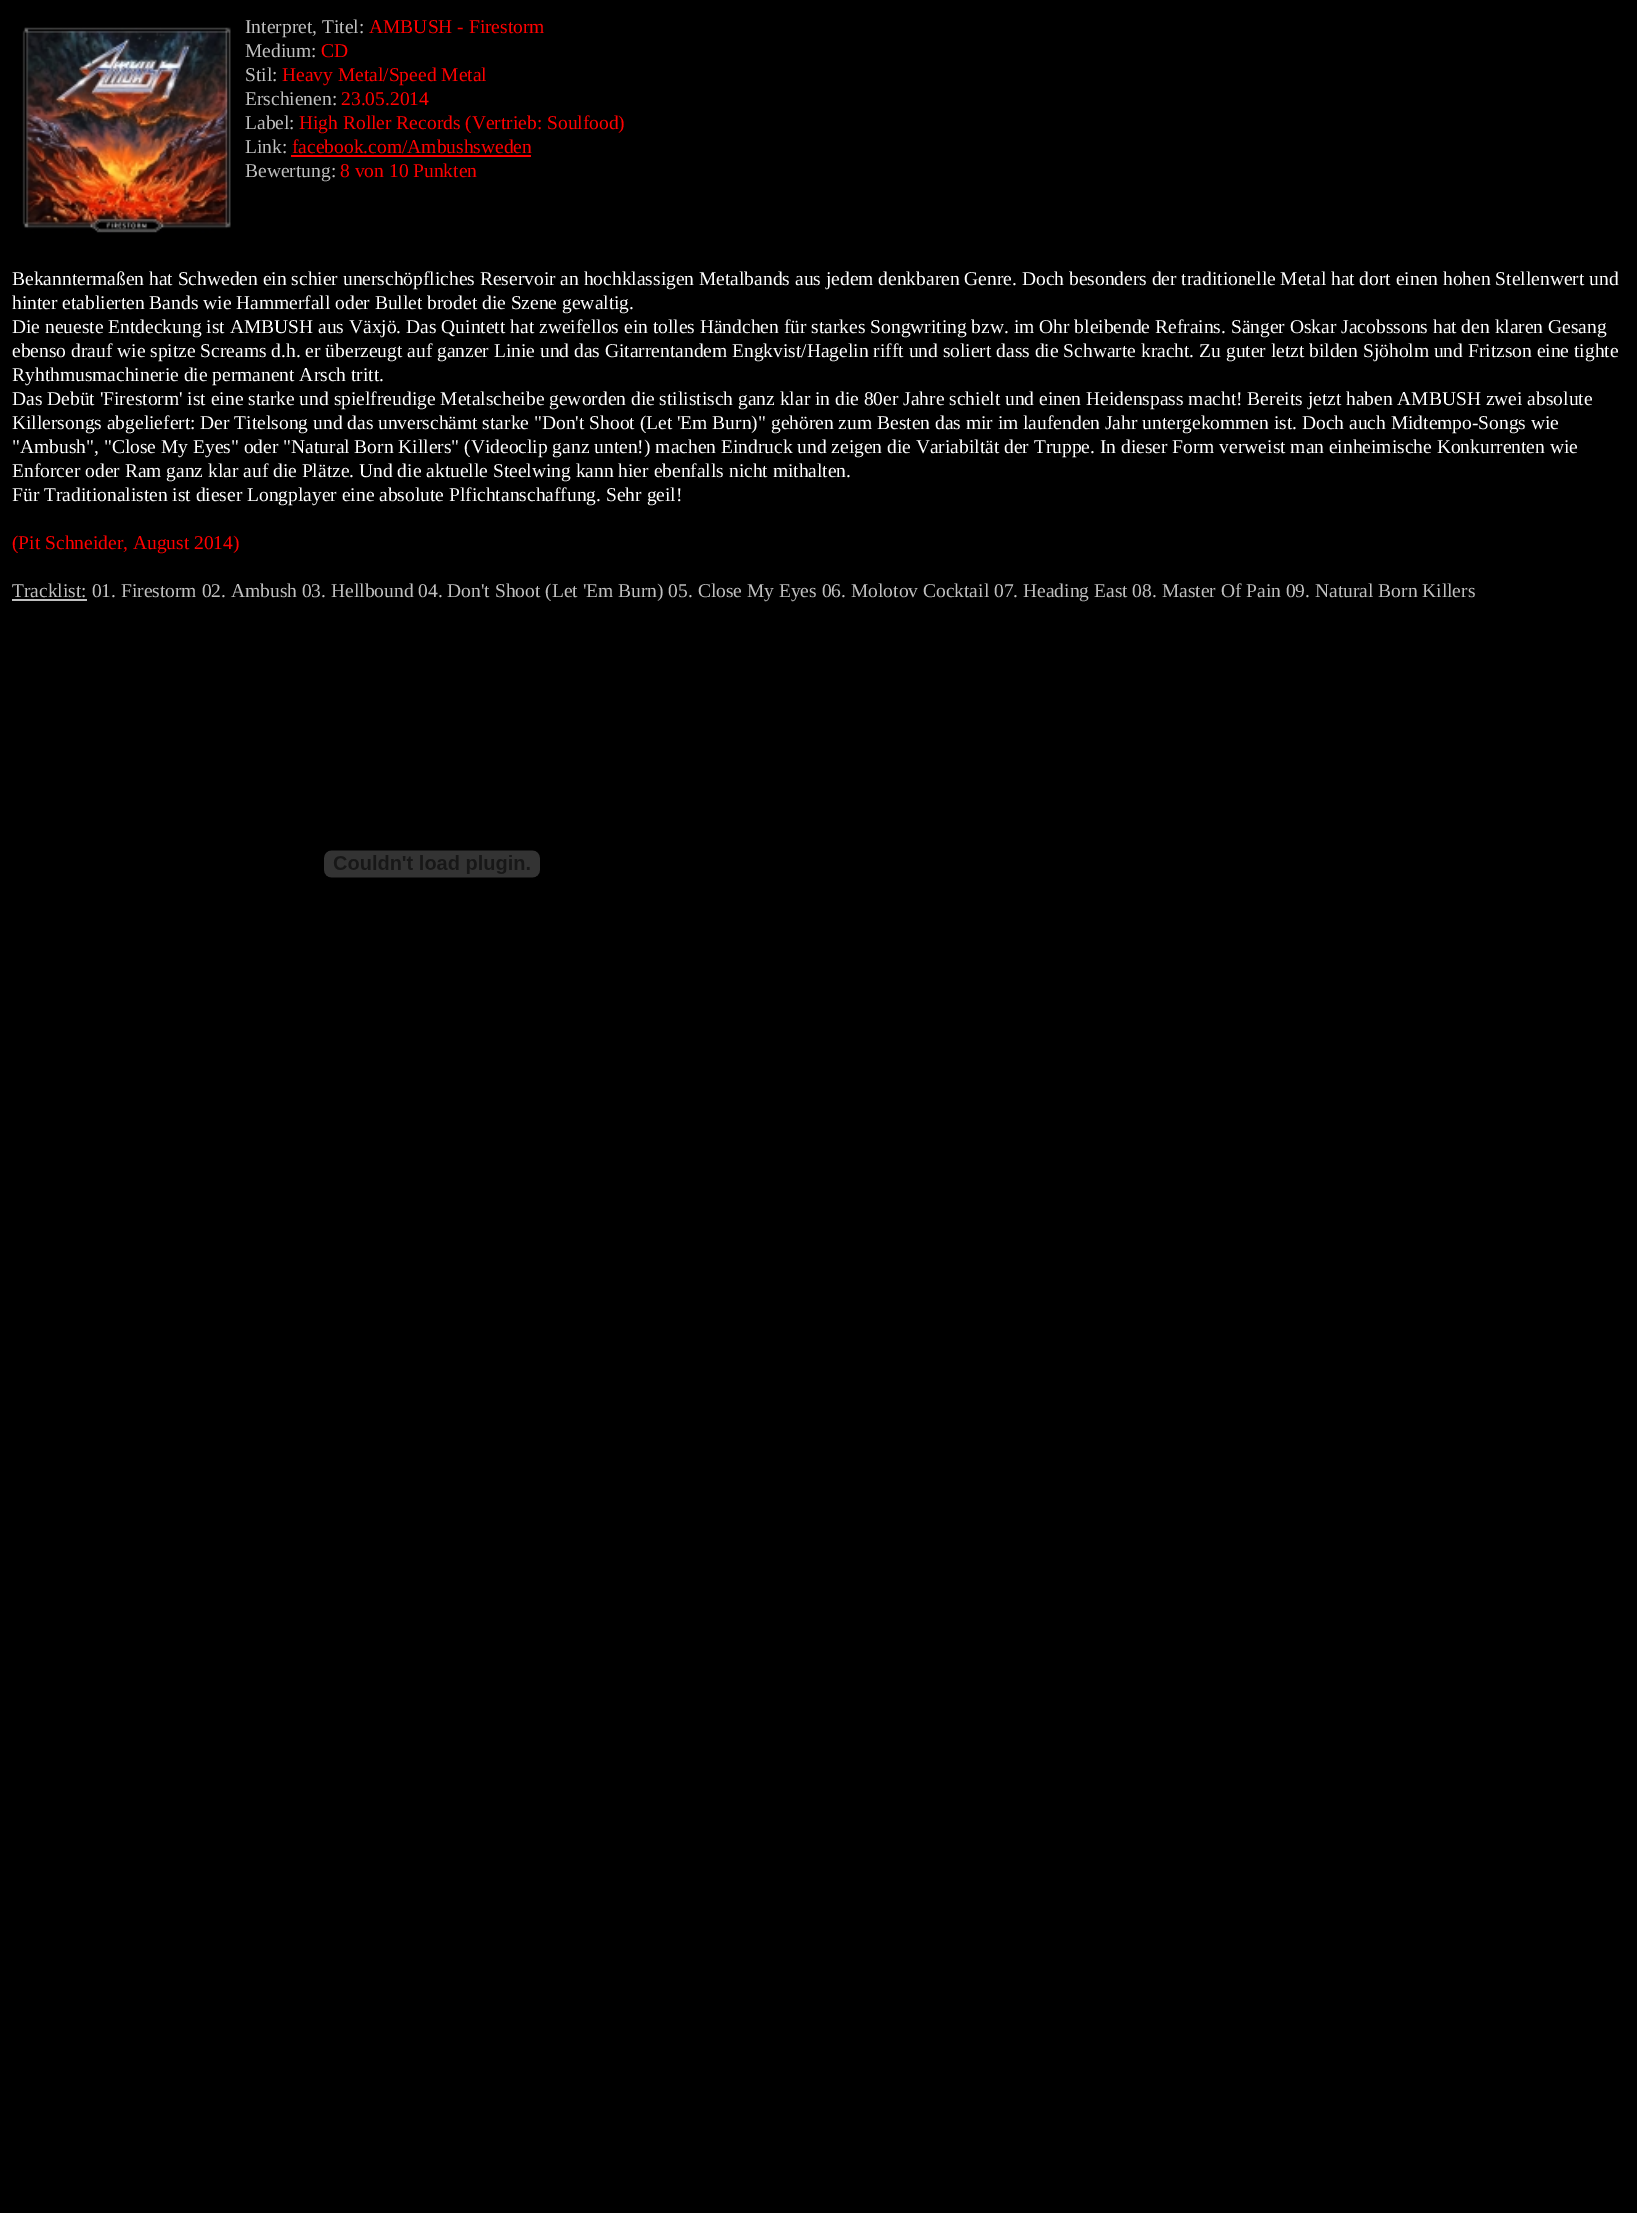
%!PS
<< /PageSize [1637 2213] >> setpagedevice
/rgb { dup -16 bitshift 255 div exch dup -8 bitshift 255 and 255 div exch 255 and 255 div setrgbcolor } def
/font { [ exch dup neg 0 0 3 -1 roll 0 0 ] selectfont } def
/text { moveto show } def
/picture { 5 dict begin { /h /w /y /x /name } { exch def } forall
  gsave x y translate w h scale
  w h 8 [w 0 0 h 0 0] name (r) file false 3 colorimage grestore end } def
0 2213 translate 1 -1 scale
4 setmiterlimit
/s1 { /LiberationSerif-Regular 19.5 font 16#C0C0C0 rgb } def
/s2 { /LiberationSerif-Regular 19.5 font 16#FF0000 rgb } def
/s3 { /LiberationSerif-Regular 19.5 font 16#FFFFFF rgb } def
16#000000 rgb
0 0 1637 2213 rectfill
(pic1.raw) 22 27 209 206 picture
s1
(Interpret, Titel:) 245 33 text
s2
(AMBUSH - Firestorm) 369 33 text
s1
(Medium:) 245 57 text
s2
(CD) 321 57 text
s1
(Stil:) 245 81 text
s2
(Heavy Metal/Speed Metal) 282 81 text
s1
(Erschienen:) 245 105 text
s2
(23.05.2014) 341 105 text
s1
(Label:) 245 129 text
s2
(High Roller Records \(Vertrieb: Soulfood\)) 299 129 text
s1
(Link:) 245 153 text
s2
(facebook.com/Ambushsweden) 292 153 text
291 155 240 2 rectfill
s1
(Bewertung:) 245 177 text
s2
(8 von 10 Punkten) 340 177 text
s3
(Bekanntermaßen hat Schweden ein schier unerschöpfliches Reservoir an hochklassigen Metalbands aus jedem denkbaren Genre. Doch besonders der traditionelle Metal hat dort einen hohen Stellenwert und) 12 285 text
(hinter etablierten Bands wie Hammerfall oder Bullet brodet die Szene gewaltig.) 12 309 text
(Die neueste Entdeckung ist AMBUSH aus Växjö. Das Quintett hat zweifellos ein tolles Händchen für starkes Songwriting bzw. im Ohr bleibende Refrains. Sänger Oskar Jacobssons hat den klaren Gesang) 12 333 text
(ebenso drauf wie spitze Screams d.h. er überzeugt auf ganzer Linie und das Gitarrentandem Engkvist/Hagelin rifft und soliert dass die Schwarte kracht. Zu guter letzt bilden Sjöholm und Fritzson eine tighte) 12 357 text
(Ryhthmusmachinerie die permanent Arsch tritt.) 12 381 text
(Das Debüt 'Firestorm' ist eine starke und spielfreudige Metalscheibe geworden die stilistisch ganz klar in die 80er Jahre schielt und einen Heidenspass macht! Bereits jetzt haben AMBUSH zwei absolute) 12 405 text
(Killersongs abgeliefert: Der Titelsong und das unverschämt starke "Don't Shoot \(Let 'Em Burn\)" gehören zum Besten das mir im laufenden Jahr untergekommen ist. Doch auch Midtempo-Songs wie) 12 429 text
("Ambush", "Close My Eyes" oder "Natural Born Killers" \(Videoclip ganz unten!\) machen Eindruck und zeigen die Variabiltät der Truppe. In dieser Form verweist man einheimische Konkurrenten wie) 12 453 text
(Enforcer oder Ram ganz klar auf die Plätze. Und die aktuelle Steelwing kann hier ebenfalls nicht mithalten.) 12 477 text
(Für Traditionalisten ist dieser Longplayer eine absolute Plfichtanschaffung. Sehr geil!) 12 501 text
s2
(\(Pit Schneider, August 2014\)) 12 549 text
16#C0C0C0 rgb
12 599 75 2 rectfill
(Tracklist: 01. Firestorm 02. Ambush 03. Hellbound 04. Don't Shoot \(Let 'Em Burn\) 05. Close My Eyes 06. Molotov Cocktail 07. Heading East 08. Master Of Pain 09. Natural Born Killers) 12 597 text
(pic2.raw) 324 850 216 28 picture
showpage
